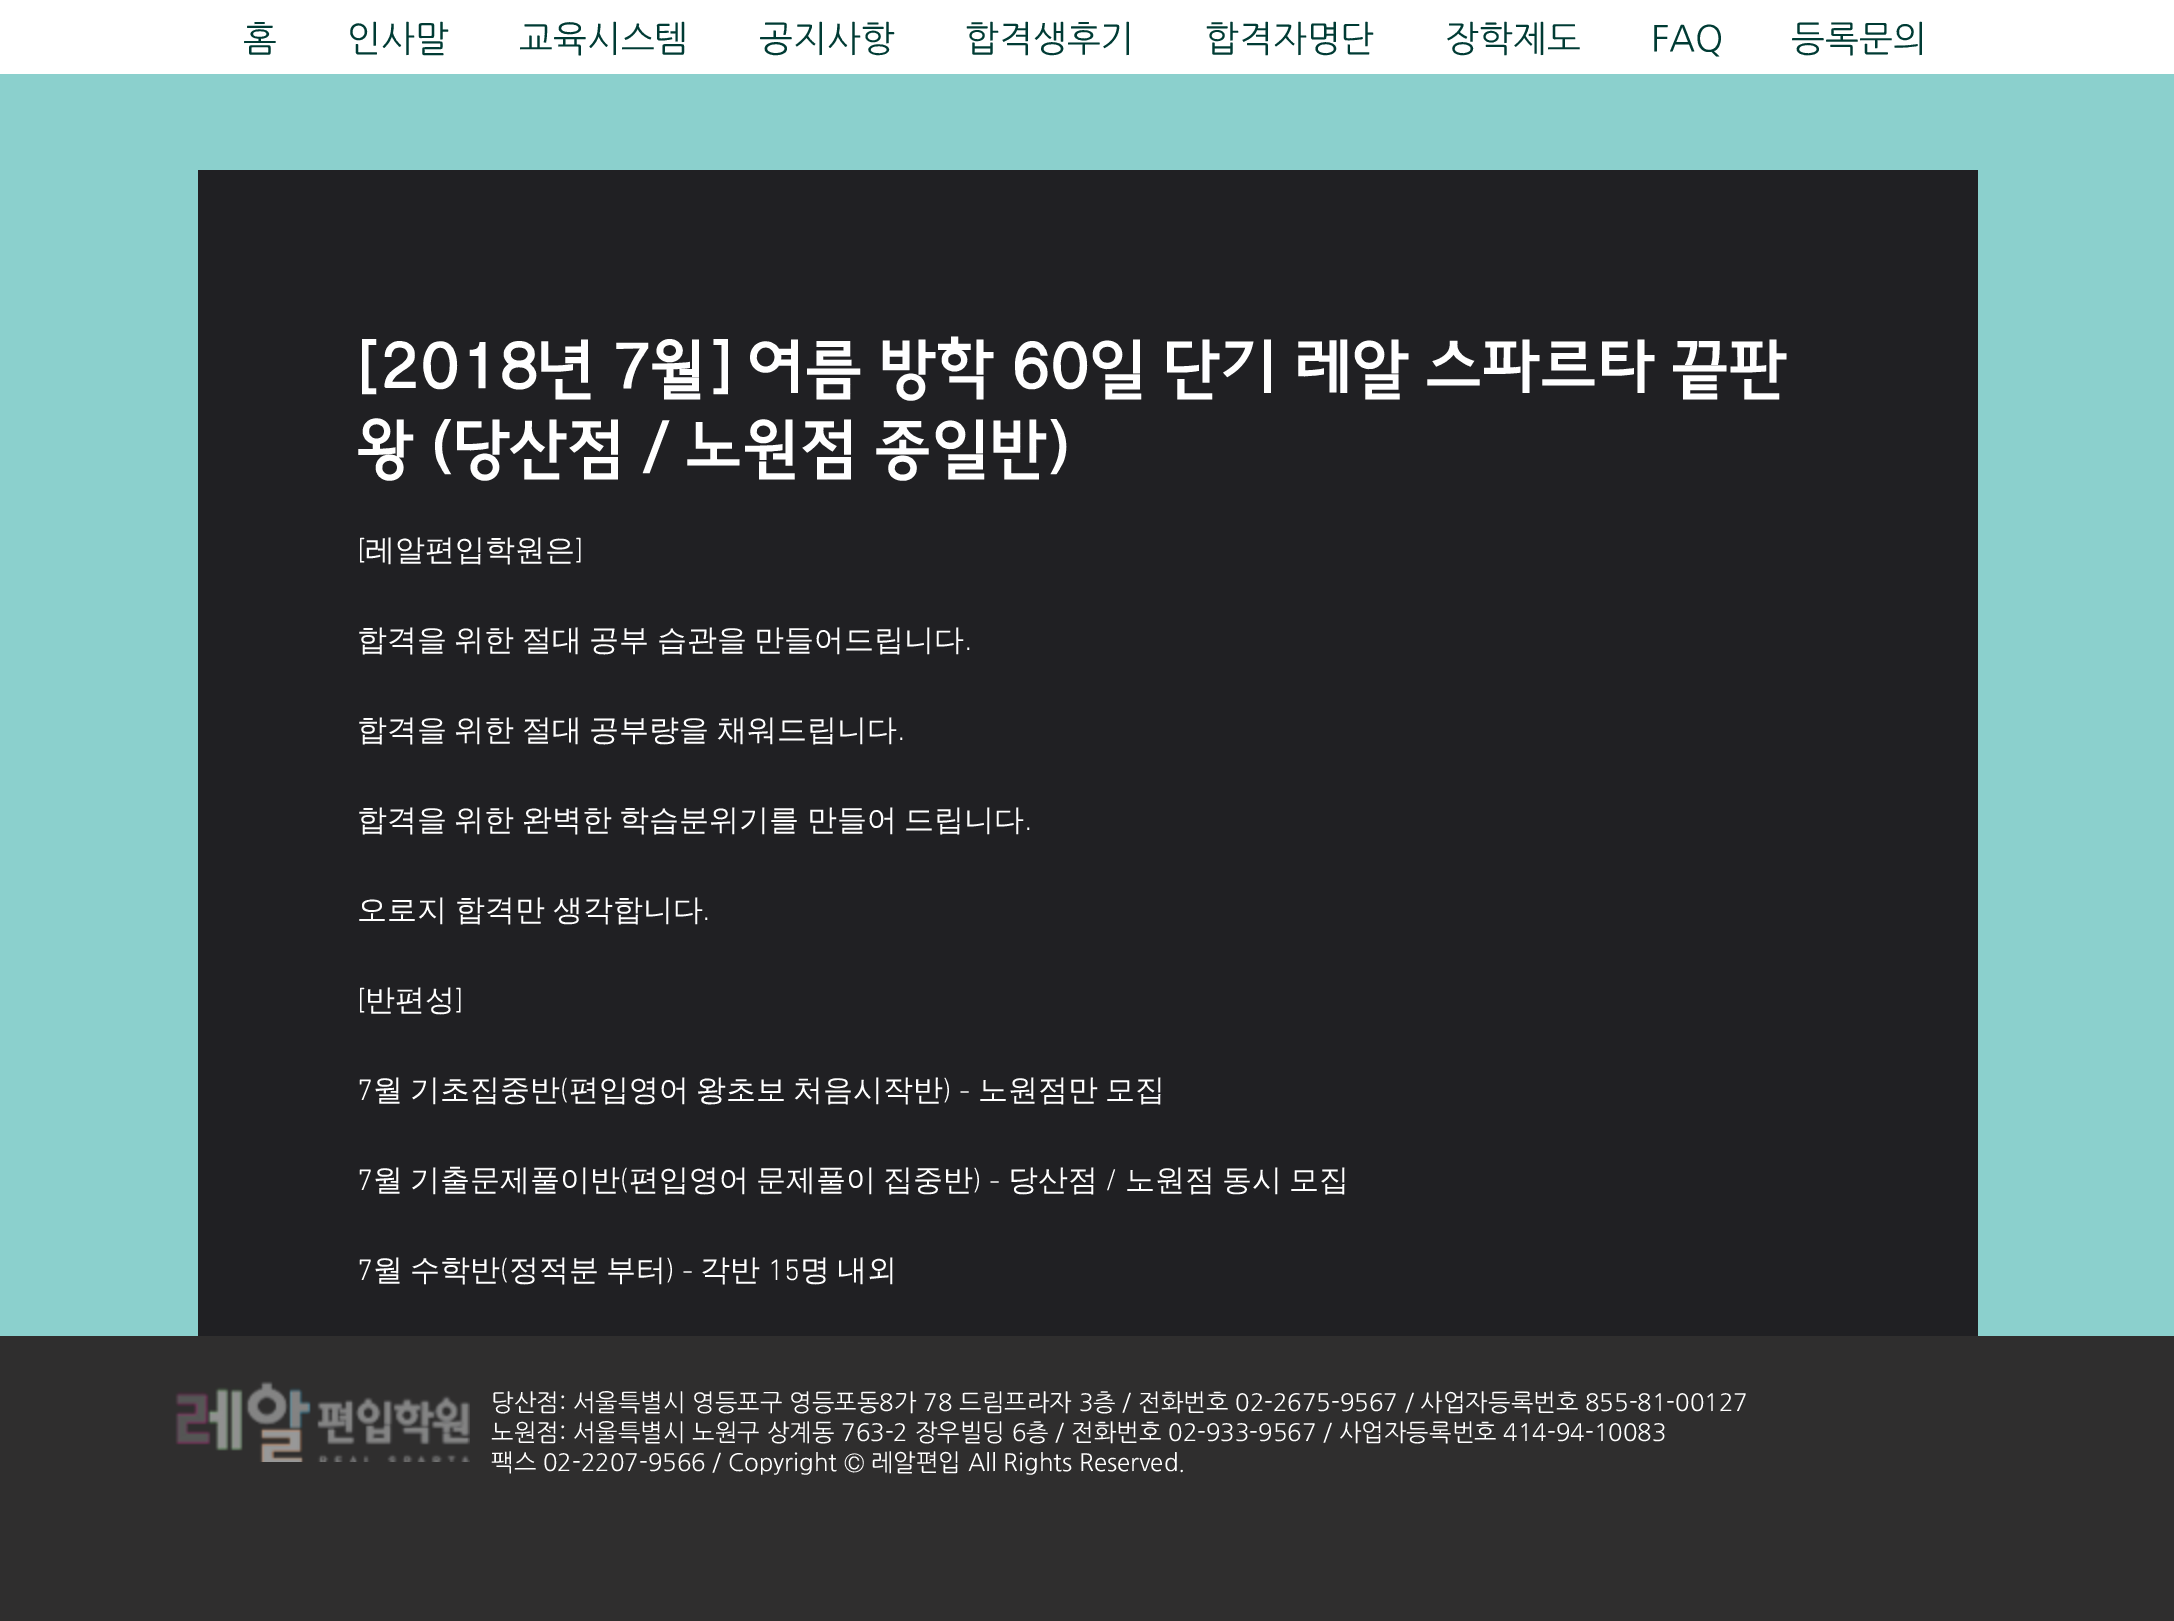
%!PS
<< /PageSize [2174 1621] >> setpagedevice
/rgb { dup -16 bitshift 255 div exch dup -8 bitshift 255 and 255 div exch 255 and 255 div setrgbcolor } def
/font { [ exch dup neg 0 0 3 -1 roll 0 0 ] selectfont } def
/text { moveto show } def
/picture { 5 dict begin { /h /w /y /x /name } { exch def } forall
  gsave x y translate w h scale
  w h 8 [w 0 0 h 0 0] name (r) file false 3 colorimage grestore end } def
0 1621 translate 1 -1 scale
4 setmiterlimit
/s1 { /NanumGothic-Regular 36 font 16#003B34 rgb } def
/s2 { /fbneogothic-Bold 64 font 16#FFFFFF rgb } def
/s3 { /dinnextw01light-Light 30 font 16#FFFFFF rgb } def
/s4 { /WenQuanYiZenHei-Medium 30 font 16#FFFFFF rgb } def
/s5 { /NanumGothic-Regular 24 font 16#FFFFFF rgb } def
16#8BD0CD rgb
0 0 2174 1621 rectfill
16#FFFFFF rgb
0 0 2174 74 rectfill
s1
(홈) 243 50 text
(인사말) 347 50 text
(교육시스템) 519 50 text
(공지사항) 759 50 text
(합격생후기) 965 50 text
(합격자명단) 1205 50 text
(장학제도) 1445 50 text
(FAQ) 1651 50 text
(등록문의) 1791 50 text
16#202023 rgb
198 170 1780 1166 rectfill
s2
([2018년 7월] 여름 방학 60일 단기 레알 스파르타 끝판) 357 392 text
(왕 \(당산점 / 노원점 종일반\)) 357 472 text
s3
([) 357 560 text
s4
(레알편입학원은) 365 560 text
s3
(]) 575 560 text
/WenQuanYiZenHei-Medium 30 font
357 650 moveto -1.5 0 32 (합격을 위한 절대 공부 습관을 만들어드립니다) widthshow
s3
(.) 965 650 text
/WenQuanYiZenHei-Medium 30 font
357 740 moveto -1.5 0 32 (합격을 위한 절대 공부량을 채워드립니다) widthshow
s3
(.) 898 740 text
/WenQuanYiZenHei-Medium 30 font
357 830 moveto -1.5 0 32 (합격을 위한 완벽한 학습분위기를 만들어 드립니다) widthshow
s3
(.) 1025 830 text
/WenQuanYiZenHei-Medium 30 font
357 920 moveto -1 0 32 (오로지 합격만 생각합니다) widthshow
s3
(.) 703 920 text
([) 357 1010 text
s4
(반편성) 365 1010 text
s3
(]) 455 1010 text
(7) 357 1100 text
s4
(월) 373 1100 text
(기초집중반) 410 1100 text
s3
(\() 560 1100 text
s4
(편입영어) 569 1100 text
(왕초보) 696 1100 text
(처음시작반) 793 1100 text
s3
(\) -) 943 1100 text
s4
(노원점만) 978 1100 text
(모집) 1105 1100 text
s3
(7) 357 1190 text
s4
(월) 373 1190 text
(기출문제풀이반) 410 1190 text
s3
(\() 620 1190 text
s4
(편입영어) 629 1190 text
(문제풀이) 756 1190 text
(집중반) 883 1190 text
s3
(\) -) 973 1190 text
s4
(당산점) 1008 1190 text
s3
(/) 1105 1190 text
s4
(노원점) 1125 1190 text
(동시) 1222 1190 text
(모집) 1289 1190 text
s3
(7) 357 1280 text
s4
(월) 373 1280 text
(수학반) 410 1280 text
s3
(\() 500 1280 text
s4
(정적분) 509 1280 text
(부터) 606 1280 text
s3
(\) -) 666 1280 text
s4
(각반) 700 1280 text
s3
(15) 768 1280 text
s4
(명) 800 1280 text
(내외) 837 1280 text
16#2F2E2E rgb
0 1336 2174 285 rectfill
(pic1.raw) 175 1381 295 81 picture
s5
(당산점: 서울특별시 영등포구 영등포동8가 78 드림프라자 3층 / 전화번호 02-2675-9567 / 사업자등록번호 855-81-00127) 491 1410 text
(노원점: 서울특별시 노원구 상계동 763-2 장우빌딩 6층 / 전화번호 02-933-9567 / 사업자등록번호 414-94-10083) 491 1440 text
(팩스 02-2207-9566 / Copyright © 레알편입 All Rights Reserved.) 491 1470 text
showpage
